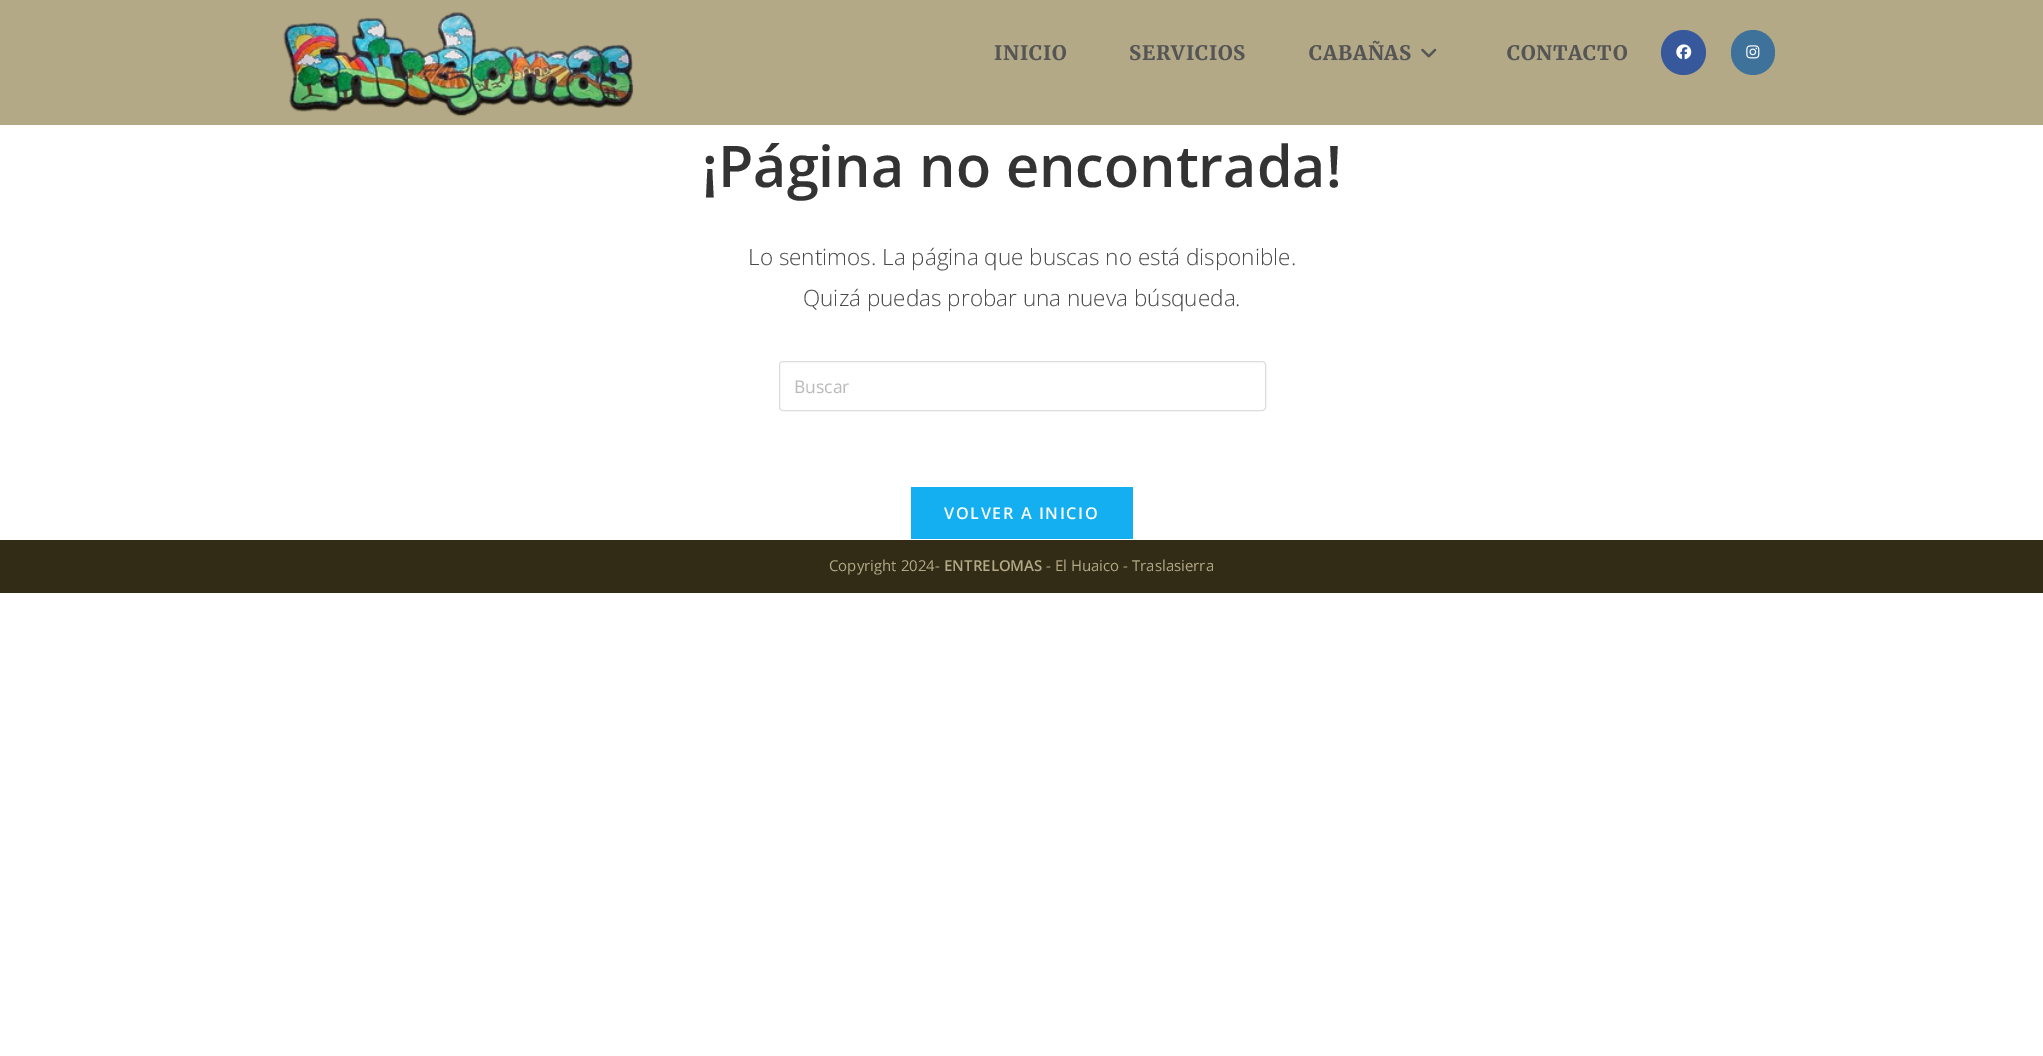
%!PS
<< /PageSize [2043 1056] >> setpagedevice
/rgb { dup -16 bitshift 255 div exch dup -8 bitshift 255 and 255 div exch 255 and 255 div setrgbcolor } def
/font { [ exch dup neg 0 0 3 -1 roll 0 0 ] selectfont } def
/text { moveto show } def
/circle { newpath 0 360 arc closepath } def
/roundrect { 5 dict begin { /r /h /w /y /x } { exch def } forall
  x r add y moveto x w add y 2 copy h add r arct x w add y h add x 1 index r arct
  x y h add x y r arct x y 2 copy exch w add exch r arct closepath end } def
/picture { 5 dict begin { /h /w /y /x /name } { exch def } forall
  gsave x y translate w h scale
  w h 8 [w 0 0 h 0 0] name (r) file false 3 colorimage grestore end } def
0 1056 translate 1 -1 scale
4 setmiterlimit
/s1 { /OpenSans-SemiBold 57.5 font 16#333333 rgb } def
/s2 { /OpenSans-Light 22.5 font 16#4A4A4A rgb } def
/s3 { /OpenSans-Regular 17.5 font 16#BABABA rgb } def
/s4 { /OpenSans-Regular 15 font 16#B3A987 rgb } def
/s5 { /OpenSans-SemiBold 15 font 16#B3A987 rgb } def
16#FFFFFF rgb
0 0 2043 1056 rectfill
16#B3A987 rgb
0 0 2043 125 rectfill
(pic1.raw) 283 12 351 105 picture
/Merriweather-ExtraBold 20 font
16#555555 rgb
994 60 moveto 0.75 0 (INICIO) ashow
1129 60 moveto 0.75 0 (SERVICIOS) ashow
1309 60 moveto 0.75 0 (CABAÑAS) ashow
(pic2.raw) 1421 48 16 10 picture
1507 60 moveto 0.75 0 (CONTACTO) ashow
16#37589B rgb
1683.5 52.5 22.5 circle fill
(pic3.raw) 1676 44 16 16 picture
16#3F729B rgb
1731 30 44 45 22 roundrect fill
(pic4.raw) 1746 45 14 14 picture
s1
(¡Página no encontrada!) 702 187 text
s2
(Lo sentimos. La página que buscas no está disponible.) 748 265 text
(Quizá puedas probar una nueva búsqueda.) 803 306 text
16#DDDDDD rgb
779.5 361.5 486 49 3.5 roundrect stroke
s3
(Buscar) 794 393 text
16#13AFF0 rgb
911 487 222 52 rectfill
/OpenSans-SemiBold 16.25 font
16#FFFFFF rgb
944 519 moveto 1.6 0 (VOLVER A INICIO) ashow
16#322C16 rgb
0 540 2043 53 rectfill
s4
(Copyright 2024-) 829 571 text
s5
(ENTRELOMAS) 944 571 text
s4
(- El Huaico - Traslasierra) 1046 571 text
showpage
